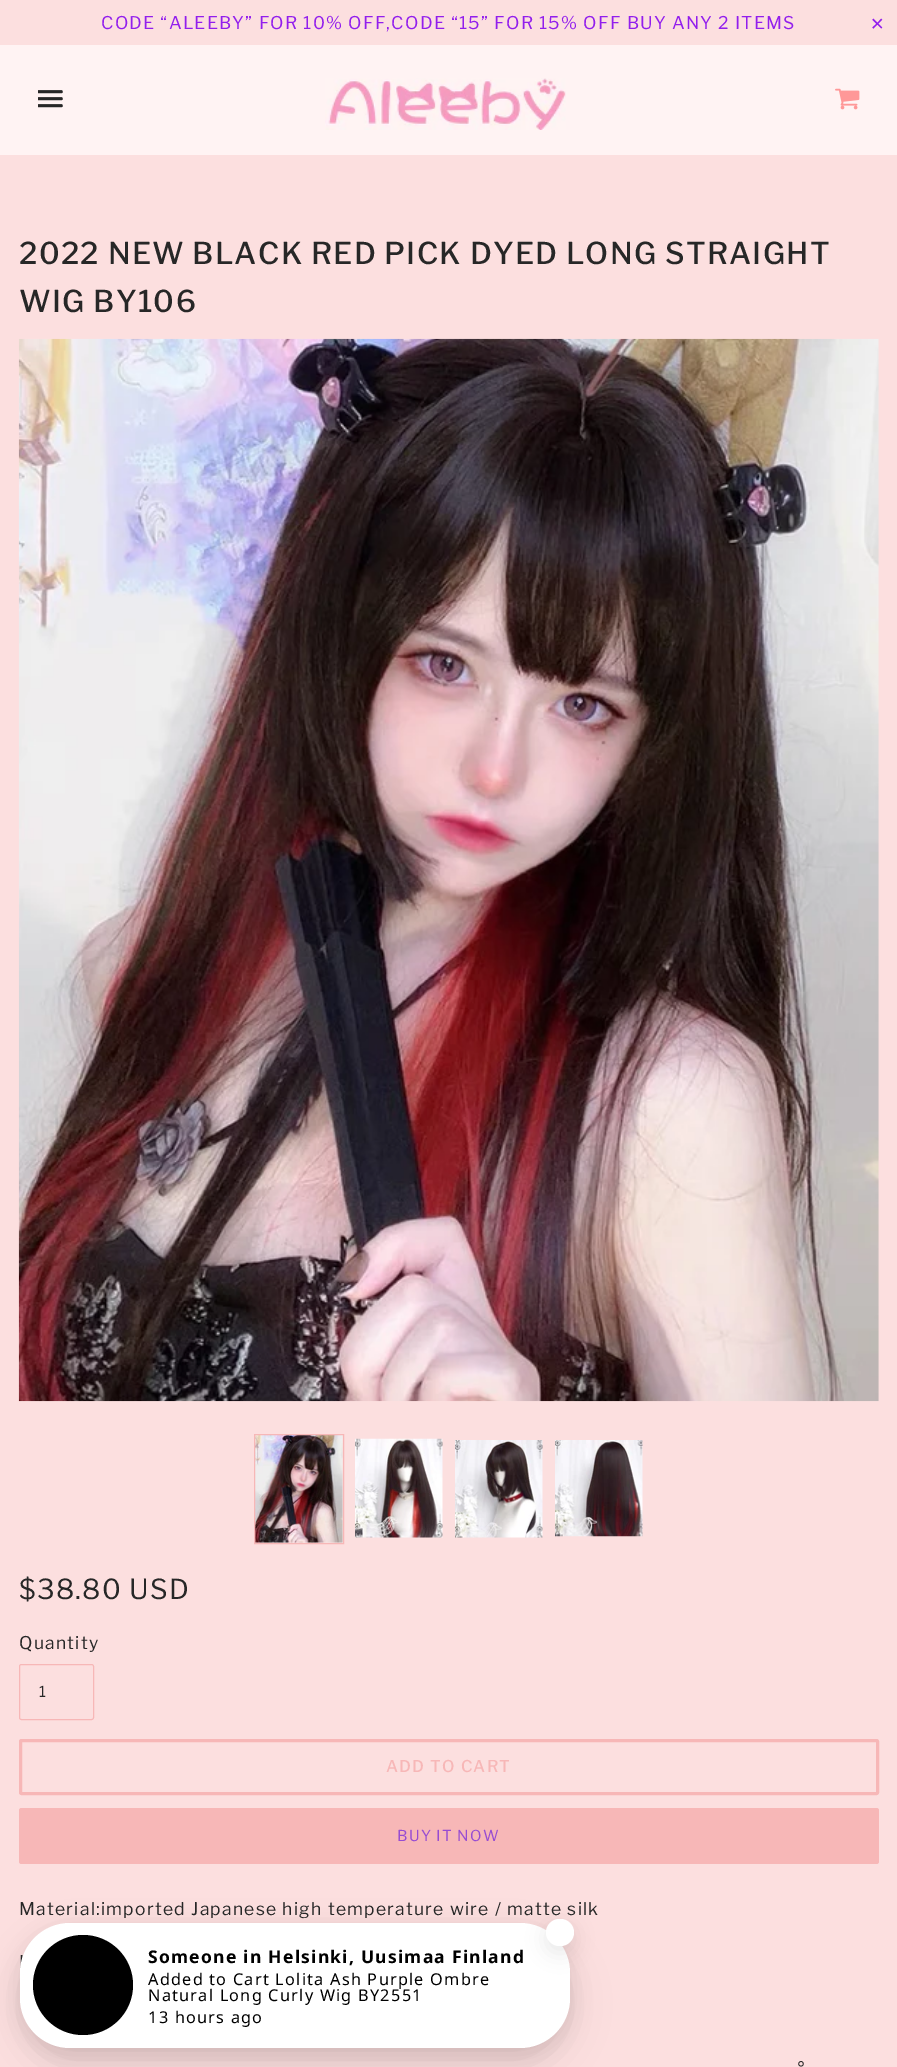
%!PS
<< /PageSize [897 2067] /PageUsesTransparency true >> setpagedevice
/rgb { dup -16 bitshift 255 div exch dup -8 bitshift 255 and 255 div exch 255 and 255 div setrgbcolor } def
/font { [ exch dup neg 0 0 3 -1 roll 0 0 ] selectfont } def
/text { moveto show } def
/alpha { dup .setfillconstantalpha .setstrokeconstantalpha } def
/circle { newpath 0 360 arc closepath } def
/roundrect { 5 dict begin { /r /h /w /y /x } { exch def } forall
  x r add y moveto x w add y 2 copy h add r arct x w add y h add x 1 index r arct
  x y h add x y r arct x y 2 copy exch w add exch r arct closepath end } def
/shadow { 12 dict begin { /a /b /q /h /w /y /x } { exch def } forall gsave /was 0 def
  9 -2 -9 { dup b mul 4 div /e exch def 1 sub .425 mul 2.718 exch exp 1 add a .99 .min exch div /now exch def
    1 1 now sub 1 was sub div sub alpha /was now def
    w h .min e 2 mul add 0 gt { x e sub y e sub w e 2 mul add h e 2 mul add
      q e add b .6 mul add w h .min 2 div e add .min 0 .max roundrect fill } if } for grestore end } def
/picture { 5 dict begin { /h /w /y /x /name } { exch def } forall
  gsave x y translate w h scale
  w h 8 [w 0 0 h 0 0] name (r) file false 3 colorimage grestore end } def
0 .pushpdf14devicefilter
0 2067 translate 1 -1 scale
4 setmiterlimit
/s1 { /DejaVuSans-Regular 17.5 font 16#921EED rgb } def
16#FCDFDF rgb
0 0 897 2067 rectfill
/LibreFranklin-Regular 17.5 font
16#921EED rgb
101 29 moveto 1.25 0 (CODE “ALEEBY” FOR 10% OFF,CODE “15” FOR 15% OFF BUY ANY 2 ITEMS) ashow
s1
(✕) 870 30 text
16#FFF3F3 rgb
0 45 897 110 rectfill
(pic1.raw) 38 90 25 18 picture
(pic2.raw) 325 78 241 52 picture
(pic3.raw) 835 88 25 22 picture
/LibreFranklin-Medium 30 font
16#272727 rgb
19 264 moveto 1.25 0 (2022 NEW BLACK RED PICK DYED LONG STRAIGHT) ashow
19 312 moveto 1.25 0 (WIG BY106) ashow
(pic4.raw) 18 338 861 1064 picture
(pic5.raw) 255 1435 88 108 picture
16#F7B7B7 rgb
254.5 1434.5 89 109 rectstroke
(pic6.raw) 355 1438 88 100 picture
(pic7.raw) 455 1440 88 98 picture
(pic8.raw) 555 1440 88 97 picture
/LibreFranklin-Regular 27.5 font
16#272727 rgb
19 1599 moveto 1.25 0 ($38.80 USD) ashow
/LibreFranklin-Regular 17.5 font
19 1649 moveto 1.25 0 (Quantity) ashow
16#F7B7B7 rgb
19.5 1664.5 74 55 2 roundrect stroke
/LibreFranklin-Regular 15 font
16#272727 rgb
39 1697 moveto 1 0 (1) ashow
16#F7B7B7 rgb
3 setlinewidth
20.5 1740.5 857 53 1 roundrect stroke
/LibreFranklin-Medium 16.25 font
386 1772 moveto 1.25 0 (ADD TO CART) ashow
19 1808 860 56 2.5 roundrect fill
/LibreFranklin-Regular 15 font
16#974CD2 rgb
397 1841 moveto 1.25 0 (BUY IT NOW) ashow
/LibreFranklin-Regular 17.5 font
16#272727 rgb
19 1915 moveto 1.25 0 (Material:imported Japanese high temperature wire / matte silk) ashow
19 1968 moveto 1.25 0 (I) ashow
797 2076 moveto 1.25 0 (°) ashow
16#000000 rgb
20 1929 550 125 50 9.5 0.08 shadow
20 1941 550 125 50 19 0.11 shadow
16#FFFFFF rgb
20 1923 550 125 50 roundrect fill
16#000000 rgb
83 1985 50 circle fill
/NotoSans-Bold 17.5 font
148 1963 moveto 1.25 0 (Someone in Helsinki, Uusimaa Finland) ashow
/NotoSans-Regular 16.25 font
148 1985 moveto 1.25 0 (Added to Cart Lolita Ash Purple Ombre) ashow
148 2001 moveto 1.25 0 (Natural Long Curly Wig BY2551) ashow
148 2023 moveto 1.25 0 (13 hours ago) ashow
546 1925 28 28 14 9.5 0.08 shadow
16#FFFFFF rgb
546 1919 28 27 13.5 roundrect fill
.poppdf14devicefilter showpage
